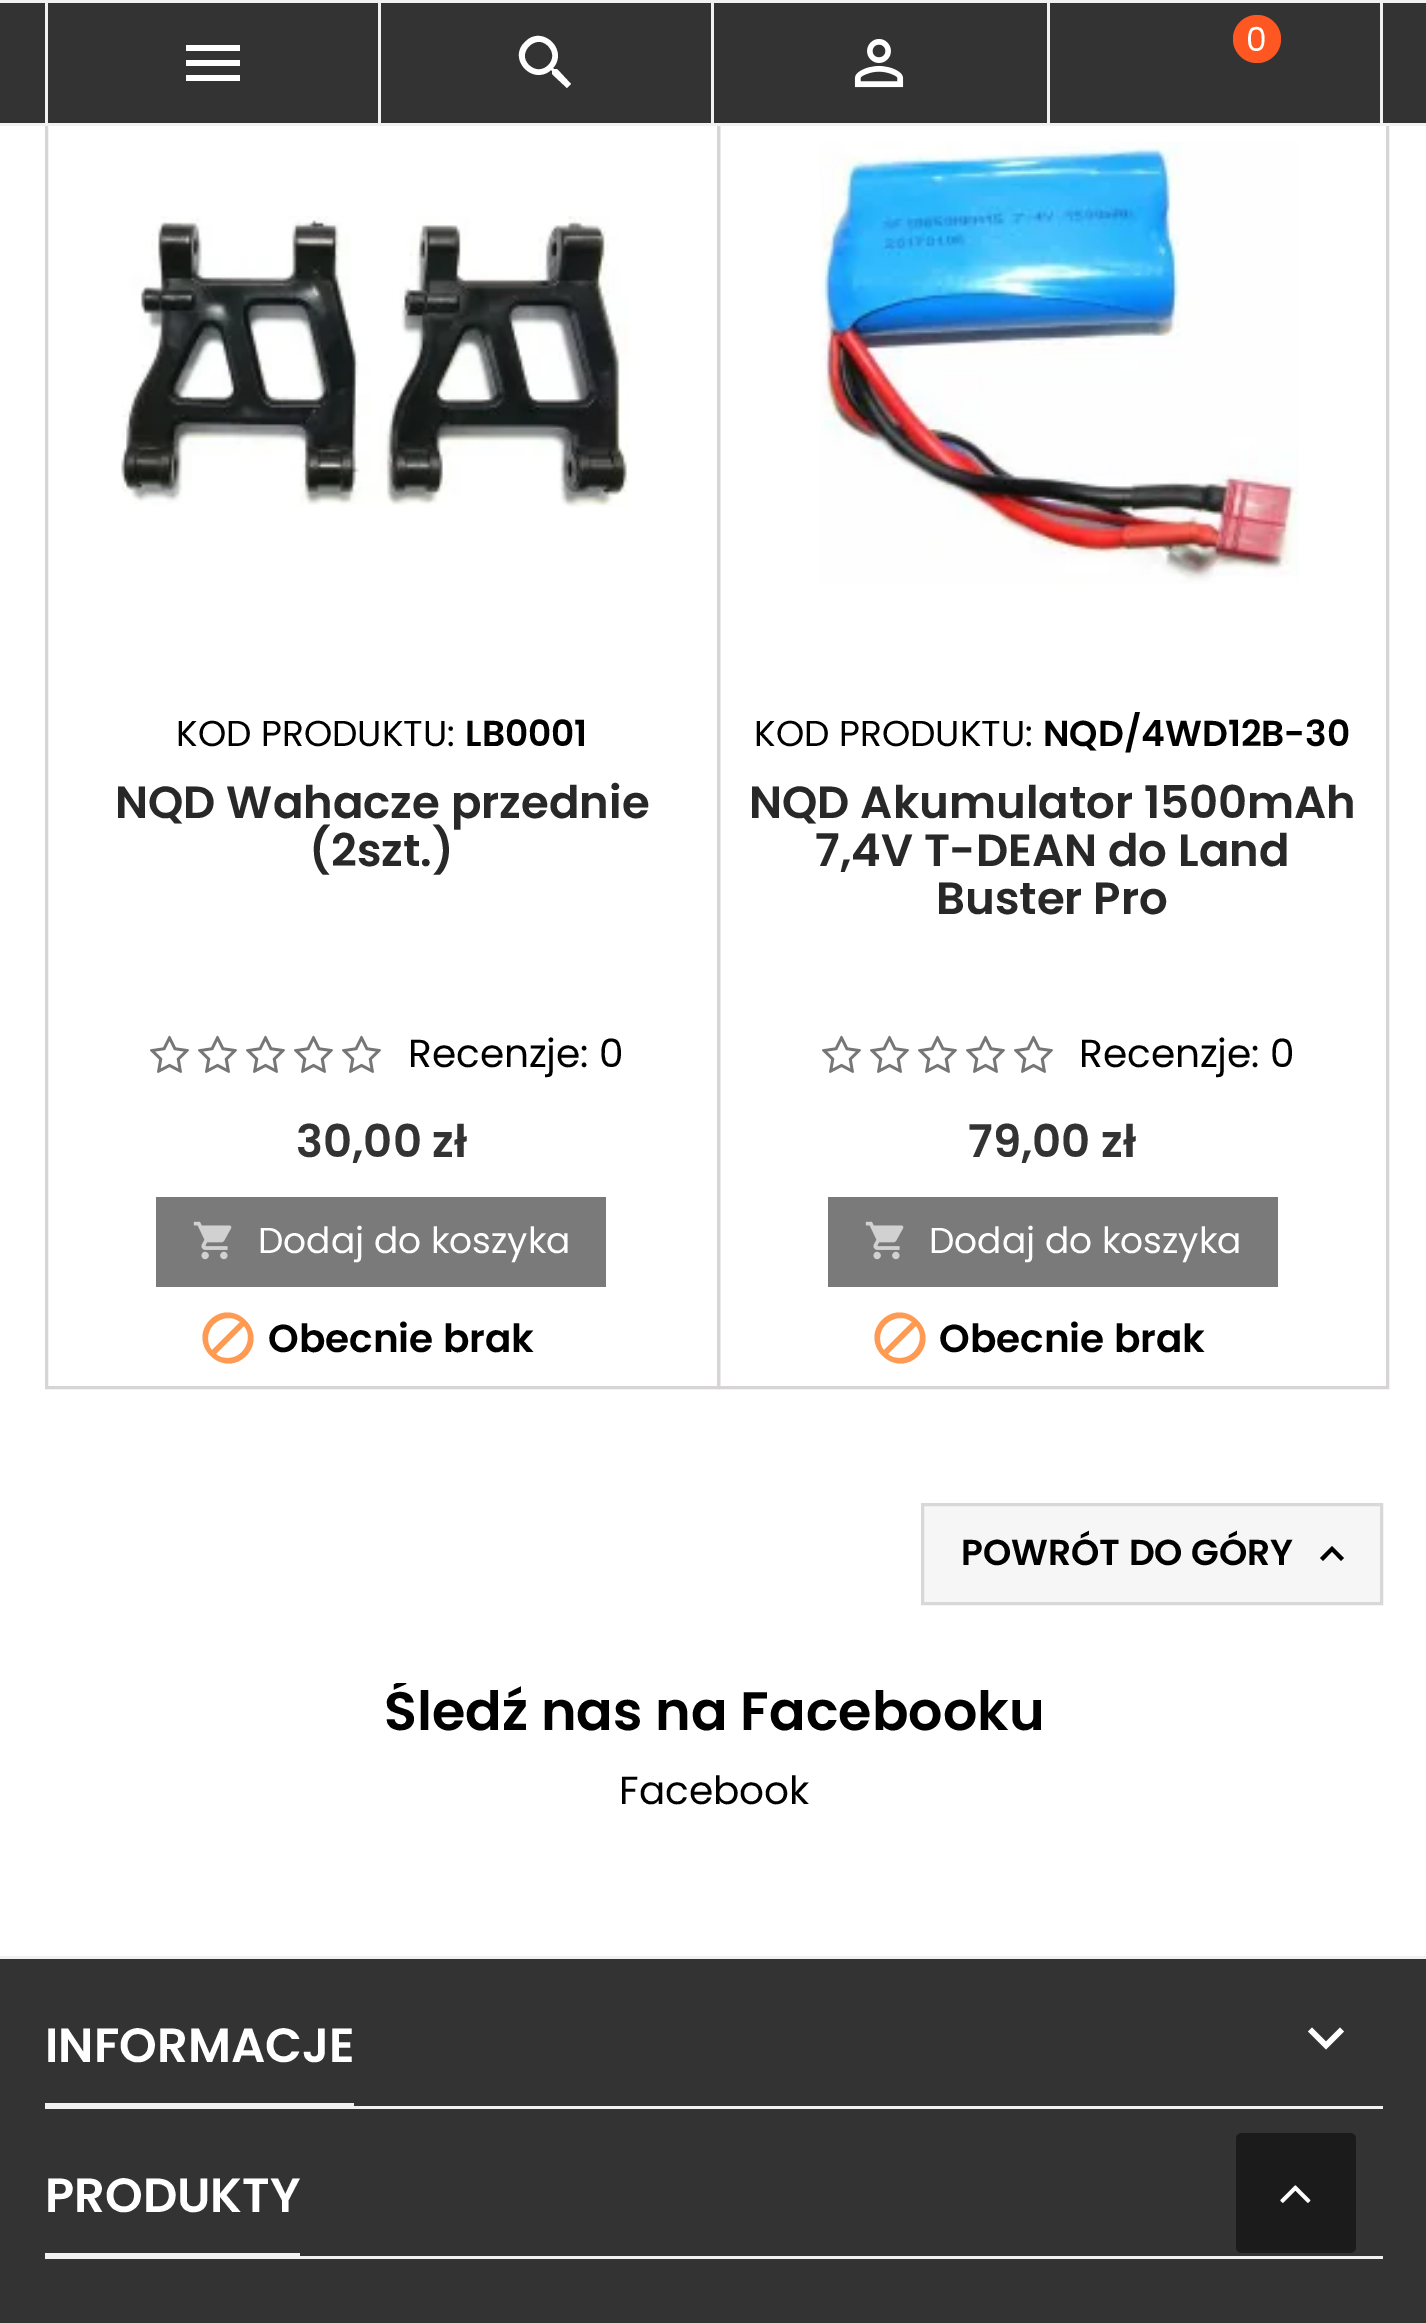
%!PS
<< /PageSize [1426 2323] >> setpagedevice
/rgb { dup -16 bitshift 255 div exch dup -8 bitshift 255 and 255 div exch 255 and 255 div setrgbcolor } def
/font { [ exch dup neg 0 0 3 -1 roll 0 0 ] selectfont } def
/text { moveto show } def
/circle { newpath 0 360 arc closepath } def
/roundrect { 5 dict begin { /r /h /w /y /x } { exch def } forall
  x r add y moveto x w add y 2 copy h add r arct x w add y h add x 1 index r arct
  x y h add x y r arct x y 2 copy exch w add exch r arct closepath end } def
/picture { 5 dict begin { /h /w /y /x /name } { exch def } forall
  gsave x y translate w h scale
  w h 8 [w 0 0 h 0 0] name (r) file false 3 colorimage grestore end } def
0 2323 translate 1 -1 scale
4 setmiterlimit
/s1 { /Poppins-Regular 33 font 16#FFFFFF rgb } def
/s2 { /Poppins-Regular 36 font 16#000000 rgb } def
/s3 { /Poppins-SemiBold 36 font 16#000000 rgb } def
/s4 { /Poppins-SemiBold 45 font 16#282828 rgb } def
/s5 { /Poppins-Regular 39 font 16#000000 rgb } def
/s6 { /Poppins-SemiBold 45 font 16#333333 rgb } def
/s7 { /Poppins-Regular 36 font 16#FFFFFF rgb } def
/s8 { /Poppins-SemiBold 39 font 16#000000 rgb } def
/s9 { /Poppins-SemiBold 54 font 16#000000 rgb } def
/s10 { /Poppins-SemiBold 48 font 16#FFFFFF rgb } def
16#FFFFFF rgb
0 0 1426 2323 rectfill
16#D6D4D4 rgb
3 setlinewidth
46.5 31.5 672 1356 rectstroke
718.5 31.5 669 1356 rectstroke
16#333333 rgb
0 3 1426 120 rectfill
16#F1F1F1 rgb
0 0 1426 3 rectfill
0 123 1426 3 rectfill
378 3 3 120 rectfill
45 3 3 120 rectfill
16#FFFFFF rgb
186 45 moveto 240 45 lineto 240 51 lineto 186 51 lineto closepath 186 66 moveto 186 60 lineto 240 60 lineto 240 66 lineto closepath 186 81 moveto 186 75 lineto 240 75 lineto 240 81 lineto closepath fill
16#F1F1F1 rgb
711 3 3 120 rectfill
16#FFFFFF rgb
529 65 moveto 542 78 561 59 548 46 curveto 536 33 516 53 529 65 curveto closepath 557 69 moveto 571 84 lineto 567 88 lineto 552 74 lineto 552 71 lineto 551 70 lineto 533 86 507 59 525 42 curveto 542 24 569 50 553 68 curveto 554 69 lineto closepath fill
16#F1F1F1 rgb
1047 3 3 120 rectfill
(pic1.raw) 854 39 50 49 picture
1380 3 3 120 rectfill
16#FF5722 rgb
1257 39 24 circle fill
s1
(0) 1246 51 text
(pic2.raw) 121 216 508 291 picture
s2
(KOD PRODUKTU:) 176 746 text
s3
(LB0001) 465 746 text
s4
(NQD Wahacze przednie) 115 818 text
(\(2szt.\)) 309 866 text
(pic3.raw) 150 1035 39 38 picture
(pic3.raw) 198 1035 39 38 picture
(pic3.raw) 246 1035 39 38 picture
(pic3.raw) 294 1035 39 38 picture
(pic3.raw) 342 1035 39 38 picture
s5
(Recenzje: 0) 408 1067 text
s6
(30,00 zł) 296 1157 text
16#7A7A7A rgb
156 1197 450 90 rectfill
(pic4.raw) 193 1221 39 39 picture
s7
(Dodaj do koszyka) 258 1253 text
16#FF9A52 rgb
228 1358 moveto 244 1358 254 1338 244 1326 curveto 216 1354 lineto 219 1357 223 1358 228 1358 curveto closepath 208 1338 moveto 208 1343 209 1347 212 1350 curveto 240 1322 lineto 228 1312 208 1322 208 1338 curveto closepath 210 1320 moveto 234 1297 269 1332 246 1356 curveto 222 1379 187 1344 210 1320 curveto closepath fill
s8
(Obecnie brak) 268 1352 text
(pic5.raw) 820 141 479 443 picture
s2
(KOD PRODUKTU:) 754 746 text
s3
(NQD/4WD12B-30) 1043 746 text
s4
(NQD Akumulator 1500mAh) 749 818 text
(7,4V T-DEAN do Land) 815 866 text
(Buster Pro) 936 914 text
(pic3.raw) 822 1035 39 38 picture
(pic3.raw) 870 1035 39 38 picture
(pic3.raw) 918 1035 39 38 picture
(pic3.raw) 966 1035 39 38 picture
(pic3.raw) 1014 1035 39 38 picture
s5
(Recenzje: 0) 1079 1067 text
s6
(79,00 zł) 968 1157 text
16#7A7A7A rgb
828 1197 450 90 rectfill
(pic4.raw) 865 1221 39 39 picture
s7
(Dodaj do koszyka) 929 1253 text
16#FF9A52 rgb
900 1358 moveto 916 1358 926 1338 916 1326 curveto 888 1354 lineto 891 1357 895 1358 900 1358 curveto closepath 880 1338 moveto 880 1343 881 1347 884 1350 curveto 912 1322 lineto 900 1312 880 1322 880 1338 curveto closepath 882 1320 moveto 906 1297 941 1332 918 1356 curveto 894 1379 859 1344 882 1320 curveto closepath fill
s8
(Obecnie brak) 939 1352 text
16#F6F6F6 rgb
922.5 1504.5 moveto 1381.5 1504.5 lineto 1381.5 1603.5 lineto 922.5 1603.5 lineto closepath gsave fill grestore
16#D8D8D8 rgb
stroke
s3
(POWRÓT DO GÓRY) 961 1565 text
1323 1561 moveto 1320 1558 lineto 1332 1546 lineto 1344 1558 lineto 1341 1561 lineto 1332 1551.5 lineto closepath fill
gsave
45 1683 1338 183 rectclip
s9
(Śledź nas na Facebooku) 384 1730 text
grestore
s5
(Facebook) 619 1804 text
16#333333 rgb
0 1959 1426 364 rectfill
16#F1F1F1 rgb
0 1956 1426 3 rectfill
354 2106 1029 3 rectfill
45 2103 309 6 rectfill
s10
(INFORMACJE) 45 2062 text
1312 2027.5 moveto 1326 2041.5 lineto 1340 2027.5 lineto 1344 2031.5 lineto 1326 2049.5 lineto 1308 2031.5 lineto closepath fill
16#F1F1F1 rgb
300 2256 1083 3 rectfill
45 2253 255 6 rectfill
s10
(PRODUKTY) 45 2212 text
16#1B1B1B rgb
1236 2133 120 120 6 roundrect fill
(pic6.raw) 1280 2185 31 18 picture
showpage
